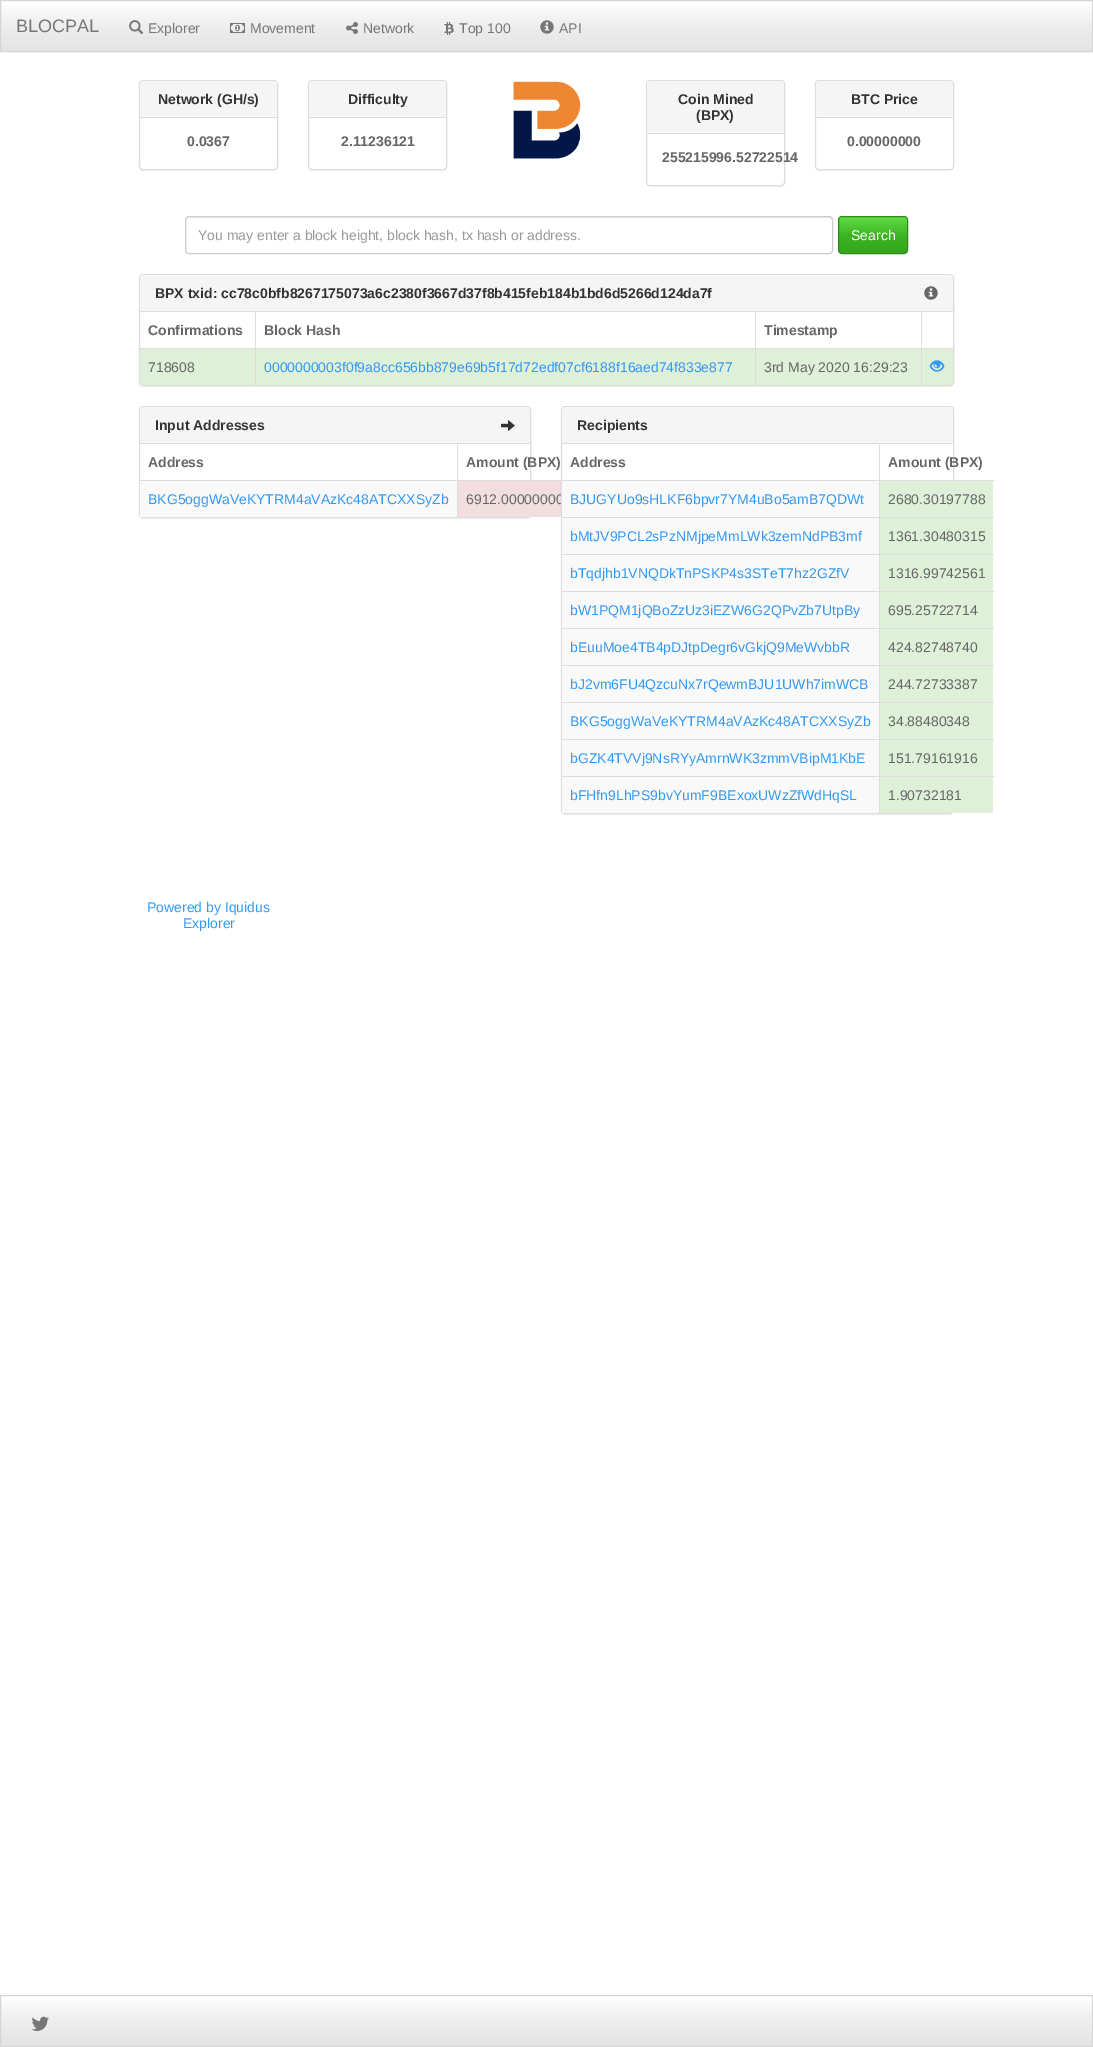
%!PS
<< /PageSize [1093 2047] /PageUsesTransparency true >> setpagedevice
/rgb { dup -16 bitshift 255 div exch dup -8 bitshift 255 and 255 div exch 255 and 255 div setrgbcolor } def
/font { [ exch dup neg 0 0 3 -1 roll 0 0 ] selectfont } def
/text { moveto show } def
/alpha { dup .setfillconstantalpha .setstrokeconstantalpha } def
/roundrect { 5 dict begin { /r /h /w /y /x } { exch def } forall
  x r add y moveto x w add y 2 copy h add r arct x w add y h add x 1 index r arct
  x y h add x y r arct x y 2 copy exch w add exch r arct closepath end } def
/shadow { 12 dict begin { /a /b /q /h /w /y /x } { exch def } forall gsave /was 0 def
  9 -2 -9 { dup b mul 4 div /e exch def 1 sub .425 mul 2.718 exch exp 1 add a .99 .min exch div /now exch def
    1 1 now sub 1 was sub div sub alpha /was now def
    w h .min e 2 mul add 0 gt { x e sub y e sub w e 2 mul add h e 2 mul add
      q e add b .6 mul add w h .min 2 div e add .min 0 .max roundrect fill } if } for grestore end } def
/picture { 5 dict begin { /h /w /y /x /name } { exch def } forall
  gsave x y translate w h scale
  w h 8 [w 0 0 h 0 0] name (r) file false 3 colorimage grestore end } def
0 .pushpdf14devicefilter
0 2047 translate 1 -1 scale
4 setmiterlimit
/s1 { /LiberationSans-Regular 18 font 16#777777 rgb } def
/s2 { /LiberationSans-Regular 14 font 16#777777 rgb } def
/s3 { /LiberationSans-Bold 14 font 16#333333 rgb } def
/s4 { /LiberationSans-Bold 14 font 16#666666 rgb } def
/s5 { /LiberationSans-Regular 14 font 16#999999 rgb } def
/s6 { /LiberationSans-Regular 14 font 16#FFFFFF rgb } def
/s7 { /LiberationSans-Regular 14 font 16#666666 rgb } def
/s8 { /LiberationSans-Regular 14 font 16#3399F3 rgb } def
16#FFFFFF rgb
0 0 1093 2047 rectfill
gsave 1 5 moveto 1092 5 lineto 1092 51 lineto 1 51 lineto closepath clip newpath
<< /ShadingType 2 /ColorSpace /DeviceRGB /Coords [547 1 547 51] /Extend [true true] /Function << /FunctionType 3 /Domain [0 1] /Functions [<< /FunctionType 2 /Domain [0 1] /C0 [1 1 1] /C1 [0.933 0.933 0.933] /N 1 >> << /FunctionType 2 /Domain [0 1] /C0 [0.933 0.933 0.933] /C1 [0.894 0.894 0.894] /N 1 >>] /Bounds [0.5] /Encode [0 1 0 1] >> >> shfill grestore
16#D5D5D5 rgb
0.5 0.5 1092 51 rectstroke
s1
(BLOCPAL) 16 32 text
(pic1.raw) 129 20 14 14 picture
s2
(Explorer) 148 33 text
(pic2.raw) 230 23 15 10 picture
(Movement) 250 33 text
(pic3.raw) 346 22 12 12 picture
(Network) 363 33 text
(pic4.raw) 444 22 10 13 picture
(Top 100) 459 33 text
(pic5.raw) 540 20 14 14 picture
(API) 559 33 text
16#000000 rgb
139 81 139 90 4 0.5 0.05 shadow
16#FFFFFF rgb
139.5 80.5 138 89 3.5 roundrect gsave fill grestore
16#DDDDDD rgb
stroke
16#F5F5F5 rgb
143 81 moveto 274 81 lineto 275.5 81 277 82.5 277 84 curveto 277 118 lineto 140 118 lineto 140 84 lineto 140 82.5 141.5 81 143 81 curveto closepath fill
16#DDDDDD rgb
140 117 137 1 rectfill
s3
(Network \(GH/s\)) 158 104 text
s4
(0.0367) 187 146 text
16#000000 rgb
308 81 139 90 4 0.5 0.05 shadow
16#FFFFFF rgb
308.5 80.5 138 89 3.5 roundrect gsave fill grestore
16#DDDDDD rgb
stroke
16#F5F5F5 rgb
312 81 moveto 443 81 lineto 444.5 81 446 82.5 446 84 curveto 446 118 lineto 309 118 lineto 309 84 lineto 309 82.5 310.5 81 312 81 curveto closepath fill
16#DDDDDD rgb
309 117 137 1 rectfill
s3
(Difficulty) 348 104 text
s4
(2.11236121) 341 146 text
(pic6.raw) 513 81 68 78 picture
16#000000 rgb
646 81 139 106 4 0.5 0.05 shadow
16#FFFFFF rgb
646.5 80.5 138 105 3.5 roundrect gsave fill grestore
16#DDDDDD rgb
stroke
16#F5F5F5 rgb
650 81 moveto 781 81 lineto 782.5 81 784 82.5 784 84 curveto 784 134 lineto 647 134 lineto 647 84 lineto 647 82.5 648.5 81 650 81 curveto closepath fill
16#DDDDDD rgb
647 133 137 1 rectfill
s3
(Coin Mined) 678 104 text
(\(BPX\)) 696 120 text
s4
(255215996.52722514) 662 162 text
16#000000 rgb
815 81 139 90 4 0.5 0.05 shadow
16#FFFFFF rgb
815.5 80.5 138 89 3.5 roundrect gsave fill grestore
16#DDDDDD rgb
stroke
16#F5F5F5 rgb
819 81 moveto 950 81 lineto 951.5 81 953 82.5 953 84 curveto 953 118 lineto 816 118 lineto 816 84 lineto 816 82.5 817.5 81 819 81 curveto closepath fill
16#DDDDDD rgb
816 117 137 1 rectfill
s3
(BTC Price) 851 104 text
s4
(0.00000000) 847 146 text
16#ECECEC rgb
189 218 moveto 829 218 lineto 831 218 832 219 832 221 curveto 832 220 lineto 832 218 831 217 829 217 curveto 189 217 lineto 187 217 186 218 186 220 curveto 186 221 lineto 186 219 187 218 189 218 curveto closepath fill
16#CCCCCC rgb
185.5 216.5 647 37 3.5 roundrect stroke
s5
(You may enter a block height, block hash, tx hash or address.) 198 240 text
gsave
838 216 70 38 4 roundrect clip newpath
gsave 839 217 moveto 907 217 lineto 907 253 lineto 839 253 lineto closepath clip newpath
<< /ShadingType 2 /ColorSpace /DeviceRGB /Coords [873 217 873 253] /Extend [true true] /Function << /FunctionType 3 /Domain [0 1] /Functions [<< /FunctionType 2 /Domain [0 1] /C0 [0.38 0.867 0.271] /C1 [0.235 0.71 0.129] /N 1 >> << /FunctionType 2 /Domain [0 1] /C0 [0.235 0.71 0.129] /C1 [0.212 0.643 0.118] /N 1 >>] /Bounds [0.5] /Encode [0 1 0 1] >> >> shfill grestore
grestore
16#2E8A19 rgb
838.5 216.5 69 37 3.5 roundrect stroke
s6
(Search) 851 240 text
16#000000 rgb
139 275 815 112 4 0.5 0.05 shadow
16#FFFFFF rgb
139.5 274.5 814 111 3.5 roundrect gsave fill grestore
16#DDDDDD rgb
stroke
16#F5F5F5 rgb
143 275 moveto 950 275 lineto 951.5 275 953 276.5 953 278 curveto 953 312 lineto 140 312 lineto 140 278 lineto 140 276.5 141.5 275 143 275 curveto closepath fill
16#DDDDDD rgb
140 311 813 1 rectfill
s3
(BPX txid: cc78c0bfb8267175073a6c2380f3667d37f8b415feb184b1bd6d5266d124da7f) 155 298 text
(pic7.raw) 924 286 14 14 picture
s4
(Confirmations) 148 335 text
(Block Hash) 264 335 text
(Timestamp) 764 335 text
16#DFF0D8 rgb
921 349 moveto 953 349 lineto 953 382 lineto 953 383.5 951.5 385 950 385 curveto 921 385 lineto closepath fill
16#DDDDDD rgb
140 348 813 1 rectfill
(pic8.raw) 929 360 16 12 picture
16#DFF0D8 rgb
140 349 moveto 255 349 lineto 255 385 lineto 143 385 lineto 141.5 385 140 383.5 140 382 curveto closepath fill
16#DDDDDD rgb
255 312 1 74 rectfill
s7
(718608) 148 372 text
16#DFF0D8 rgb
256 349 499 36 rectfill
16#DDDDDD rgb
755 312 1 74 rectfill
s8
(0000000003f0f9a8cc656bb879e69b5f17d72edf07cf6188f16aed74f833e877) 264 372 text
16#DFF0D8 rgb
756 349 165 36 rectfill
16#DDDDDD rgb
921 312 1 74 rectfill
s7
(3rd May 2020 16:29:23) 764 372 text
16#000000 rgb
139 407 392 112 4 0.5 0.05 shadow
16#FFFFFF rgb
139.5 406.5 391 111 3.5 roundrect gsave fill grestore
16#DDDDDD rgb
stroke
16#F5F5F5 rgb
143 407 moveto 527 407 lineto 528.5 407 530 408.5 530 410 curveto 530 444 lineto 140 444 lineto 140 410 lineto 140 408.5 141.5 407 143 407 curveto closepath fill
16#DDDDDD rgb
140 443 390 1 rectfill
s3
(Input Addresses) 155 430 text
(pic9.raw) 501 420 14 11 picture
s4
(Address) 148 467 text
(Amount \(BPX\)) 466 467 text
16#F9F9F9 rgb
140 481 317 36 rectfill
16#DDDDDD rgb
140 480 421 1 rectfill
457 444 1 74 rectfill
s8
(BKG5oggWaVeKYTRM4aVAzKc48ATCXXSyZb) 148 504 text
16#F2DEDE rgb
458 481 103 36 rectfill
s7
(6912.00000000) 466 504 text
16#000000 rgb
561 407 393 408 4 0.5 0.05 shadow
16#FFFFFF rgb
561.5 406.5 392 407 3.5 roundrect gsave fill grestore
16#DDDDDD rgb
stroke
16#F5F5F5 rgb
565 407 moveto 950 407 lineto 951.5 407 953 408.5 953 410 curveto 953 444 lineto 562 444 lineto 562 410 lineto 562 408.5 563.5 407 565 407 curveto closepath fill
16#DDDDDD rgb
562 443 391 1 rectfill
s3
(Recipients) 577 430 text
s4
(Address) 570 467 text
(Amount \(BPX\)) 888 467 text
16#F9F9F9 rgb
562 481 317 36 rectfill
16#DDDDDD rgb
562 480 432 1 rectfill
562 517 432 1 rectfill
562 554 432 1 rectfill
562 591 432 1 rectfill
562 628 432 1 rectfill
562 665 432 1 rectfill
562 702 432 1 rectfill
562 739 432 1 rectfill
562 776 432 1 rectfill
879 776 1 38 rectfill
879 739 1 38 rectfill
879 702 1 38 rectfill
879 665 1 38 rectfill
879 628 1 38 rectfill
879 591 1 38 rectfill
879 554 1 38 rectfill
879 517 1 38 rectfill
879 444 1 74 rectfill
s8
(BJUGYUo9sHLKF6bpvr7YM4uBo5amB7QDWt) 570 504 text
16#DFF0D8 rgb
880 481 113 36 rectfill
s7
(2680.30197788) 888 504 text
16#F9F9F9 rgb
562 518 317 36 rectfill
s8
(bMtJV9PCL2sPzNMjpeMmLWk3zemNdPB3mf) 570 541 text
16#DFF0D8 rgb
880 518 113 36 rectfill
s7
(1361.30480315) 888 541 text
16#F9F9F9 rgb
562 555 317 36 rectfill
s8
(bTqdjhb1VNQDkTnPSKP4s3STeT7hz2GZfV) 570 578 text
16#DFF0D8 rgb
880 555 113 36 rectfill
s7
(1316.99742561) 888 578 text
16#F9F9F9 rgb
562 592 317 36 rectfill
s8
(bW1PQM1jQBoZzUz3iEZW6G2QPvZb7UtpBy) 570 615 text
16#DFF0D8 rgb
880 592 113 36 rectfill
s7
(695.25722714) 888 615 text
16#F9F9F9 rgb
562 629 317 36 rectfill
s8
(bEuuMoe4TB4pDJtpDegr6vGkjQ9MeWvbbR) 570 652 text
16#DFF0D8 rgb
880 629 113 36 rectfill
s7
(424.82748740) 888 652 text
16#F9F9F9 rgb
562 666 317 36 rectfill
s8
(bJ2vm6FU4QzcuNx7rQewmBJU1UWh7imWCB) 570 689 text
16#DFF0D8 rgb
880 666 113 36 rectfill
s7
(244.72733387) 888 689 text
16#F9F9F9 rgb
562 703 317 36 rectfill
s8
(BKG5oggWaVeKYTRM4aVAzKc48ATCXXSyZb) 570 726 text
16#DFF0D8 rgb
880 703 113 36 rectfill
s7
(34.88480348) 888 726 text
16#F9F9F9 rgb
562 740 317 36 rectfill
s8
(bGZK4TVVj9NsRYyAmrnWK3zmmVBipM1KbE) 570 763 text
16#DFF0D8 rgb
880 740 113 36 rectfill
s7
(151.79161916) 888 763 text
16#F9F9F9 rgb
562 777 317 36 rectfill
s8
(bFHfn9LhPS9bvYumF9BExoxUWzZfWdHqSL) 570 800 text
16#DFF0D8 rgb
880 777 113 36 rectfill
s7
(1.90732181) 888 800 text
s8
(Powered by Iquidus) 147 912 text
(Explorer) 183 928 text
gsave 1 2000 moveto 1092 2000 lineto 1092 2046 lineto 1 2046 lineto closepath clip newpath
<< /ShadingType 2 /ColorSpace /DeviceRGB /Coords [547 1996 547 2046] /Extend [true true] /Function << /FunctionType 3 /Domain [0 1] /Functions [<< /FunctionType 2 /Domain [0 1] /C0 [1 1 1] /C1 [0.933 0.933 0.933] /N 1 >> << /FunctionType 2 /Domain [0 1] /C0 [0.933 0.933 0.933] /C1 [0.894 0.894 0.894] /N 1 >>] /Bounds [0.5] /Encode [0 1 0 1] >> >> shfill grestore
16#D5D5D5 rgb
0.5 1995.5 1092 51 rectstroke
(pic10.raw) 31 2016 18 15 picture
.poppdf14devicefilter showpage
